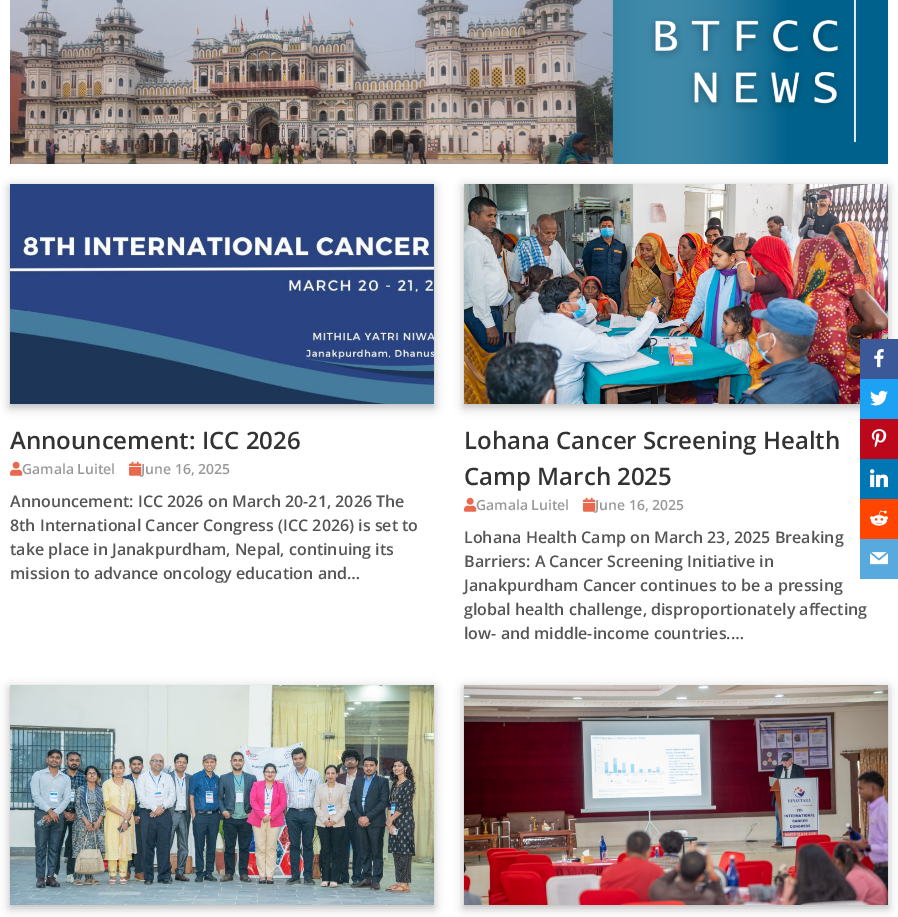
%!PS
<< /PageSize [898 917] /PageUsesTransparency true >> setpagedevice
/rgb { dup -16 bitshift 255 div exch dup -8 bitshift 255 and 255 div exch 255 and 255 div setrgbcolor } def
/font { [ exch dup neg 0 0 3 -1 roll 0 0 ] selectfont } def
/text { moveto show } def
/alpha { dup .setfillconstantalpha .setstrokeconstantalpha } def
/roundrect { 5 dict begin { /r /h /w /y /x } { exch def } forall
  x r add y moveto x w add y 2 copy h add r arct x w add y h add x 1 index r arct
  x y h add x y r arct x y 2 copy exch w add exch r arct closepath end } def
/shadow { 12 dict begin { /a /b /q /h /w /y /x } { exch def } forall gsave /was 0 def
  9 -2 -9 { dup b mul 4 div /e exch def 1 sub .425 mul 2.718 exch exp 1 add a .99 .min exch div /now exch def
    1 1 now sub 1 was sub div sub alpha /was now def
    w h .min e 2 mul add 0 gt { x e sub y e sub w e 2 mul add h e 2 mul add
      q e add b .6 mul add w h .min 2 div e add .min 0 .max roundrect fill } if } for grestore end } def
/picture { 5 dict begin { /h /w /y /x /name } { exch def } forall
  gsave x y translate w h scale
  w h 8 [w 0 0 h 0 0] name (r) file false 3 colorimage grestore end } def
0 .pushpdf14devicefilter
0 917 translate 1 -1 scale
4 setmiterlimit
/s1 { /OpenSans-SemiBold 24 font 16#333333 rgb } def
/s2 { /OpenSans-SemiBold 14 font 16#999999 rgb } def
/s3 { /OpenSans-SemiBold 16 font 16#555555 rgb } def
16#FFFFFF rgb
0 0 898 917 rectfill
(pic1.raw) 10 0 878 164 picture
16#B5B5B5 rgb
10 187 424 220 0 5 1 shadow
(pic2.raw) 10 184 424 220 picture
s1
(Announcement: ICC 2026) 10 449 text
(pic3.raw) 10 461 13 15 picture
s2
(Gamala Luitel) 22 474 text
(pic4.raw) 129 461 13 15 picture
(June 16, 2025) 141 474 text
s3
(Announcement: ICC 2026 on March 20-21, 2026 The) 10 507 text
(8th International Cancer Congress \(ICC 2026\) is set to) 10 531 text
(take place in Janakpurdham, Nepal, continuing its) 10 555 text
(mission to advance oncology education and…) 10 579 text
16#B5B5B5 rgb
464 187 424 220 0 5 1 shadow
(pic5.raw) 464 184 424 220 picture
s1
(Lohana Cancer Screening Health) 464 449 text
(Camp March 2025) 464 485 text
(pic3.raw) 464 497 13 15 picture
s2
(Gamala Luitel) 476 510 text
(pic4.raw) 583 497 13 15 picture
(June 16, 2025) 595 510 text
s3
(Lohana Health Camp on March 23, 2025 Breaking) 464 543 text
(Barriers: A Cancer Screening Initiative in) 464 567 text
(Janakpurdham Cancer continues to be a pressing) 464 591 text
(global health challenge, disproportionately affecting) 464 615 text
(low- and middle-income countries.…) 464 639 text
16#B5B5B5 rgb
10 688 424 220 0 5 1 shadow
(pic6.raw) 10 685 424 220 picture
464 688 424 220 0 5 1 shadow
(pic7.raw) 464 685 424 220 picture
16#3B5998 rgb
860 339 38 40 rectfill
(pic8.raw) 874 349 10 19 picture
16#1DA1F2 rgb
860 379 38 40 rectfill
(pic9.raw) 870 390 18 16 picture
16#BD081C rgb
860 419 38 40 rectfill
(pic10.raw) 871 429 16 19 picture
16#0077B5 rgb
860 459 38 40 rectfill
(pic11.raw) 870 469 18 19 picture
16#FF4500 rgb
860 499 38 40 rectfill
(pic12.raw) 870 510 18 16 picture
16#58A9DE rgb
860 539 38 40 rectfill
(pic13.raw) 870 552 18 13 picture
.poppdf14devicefilter showpage
